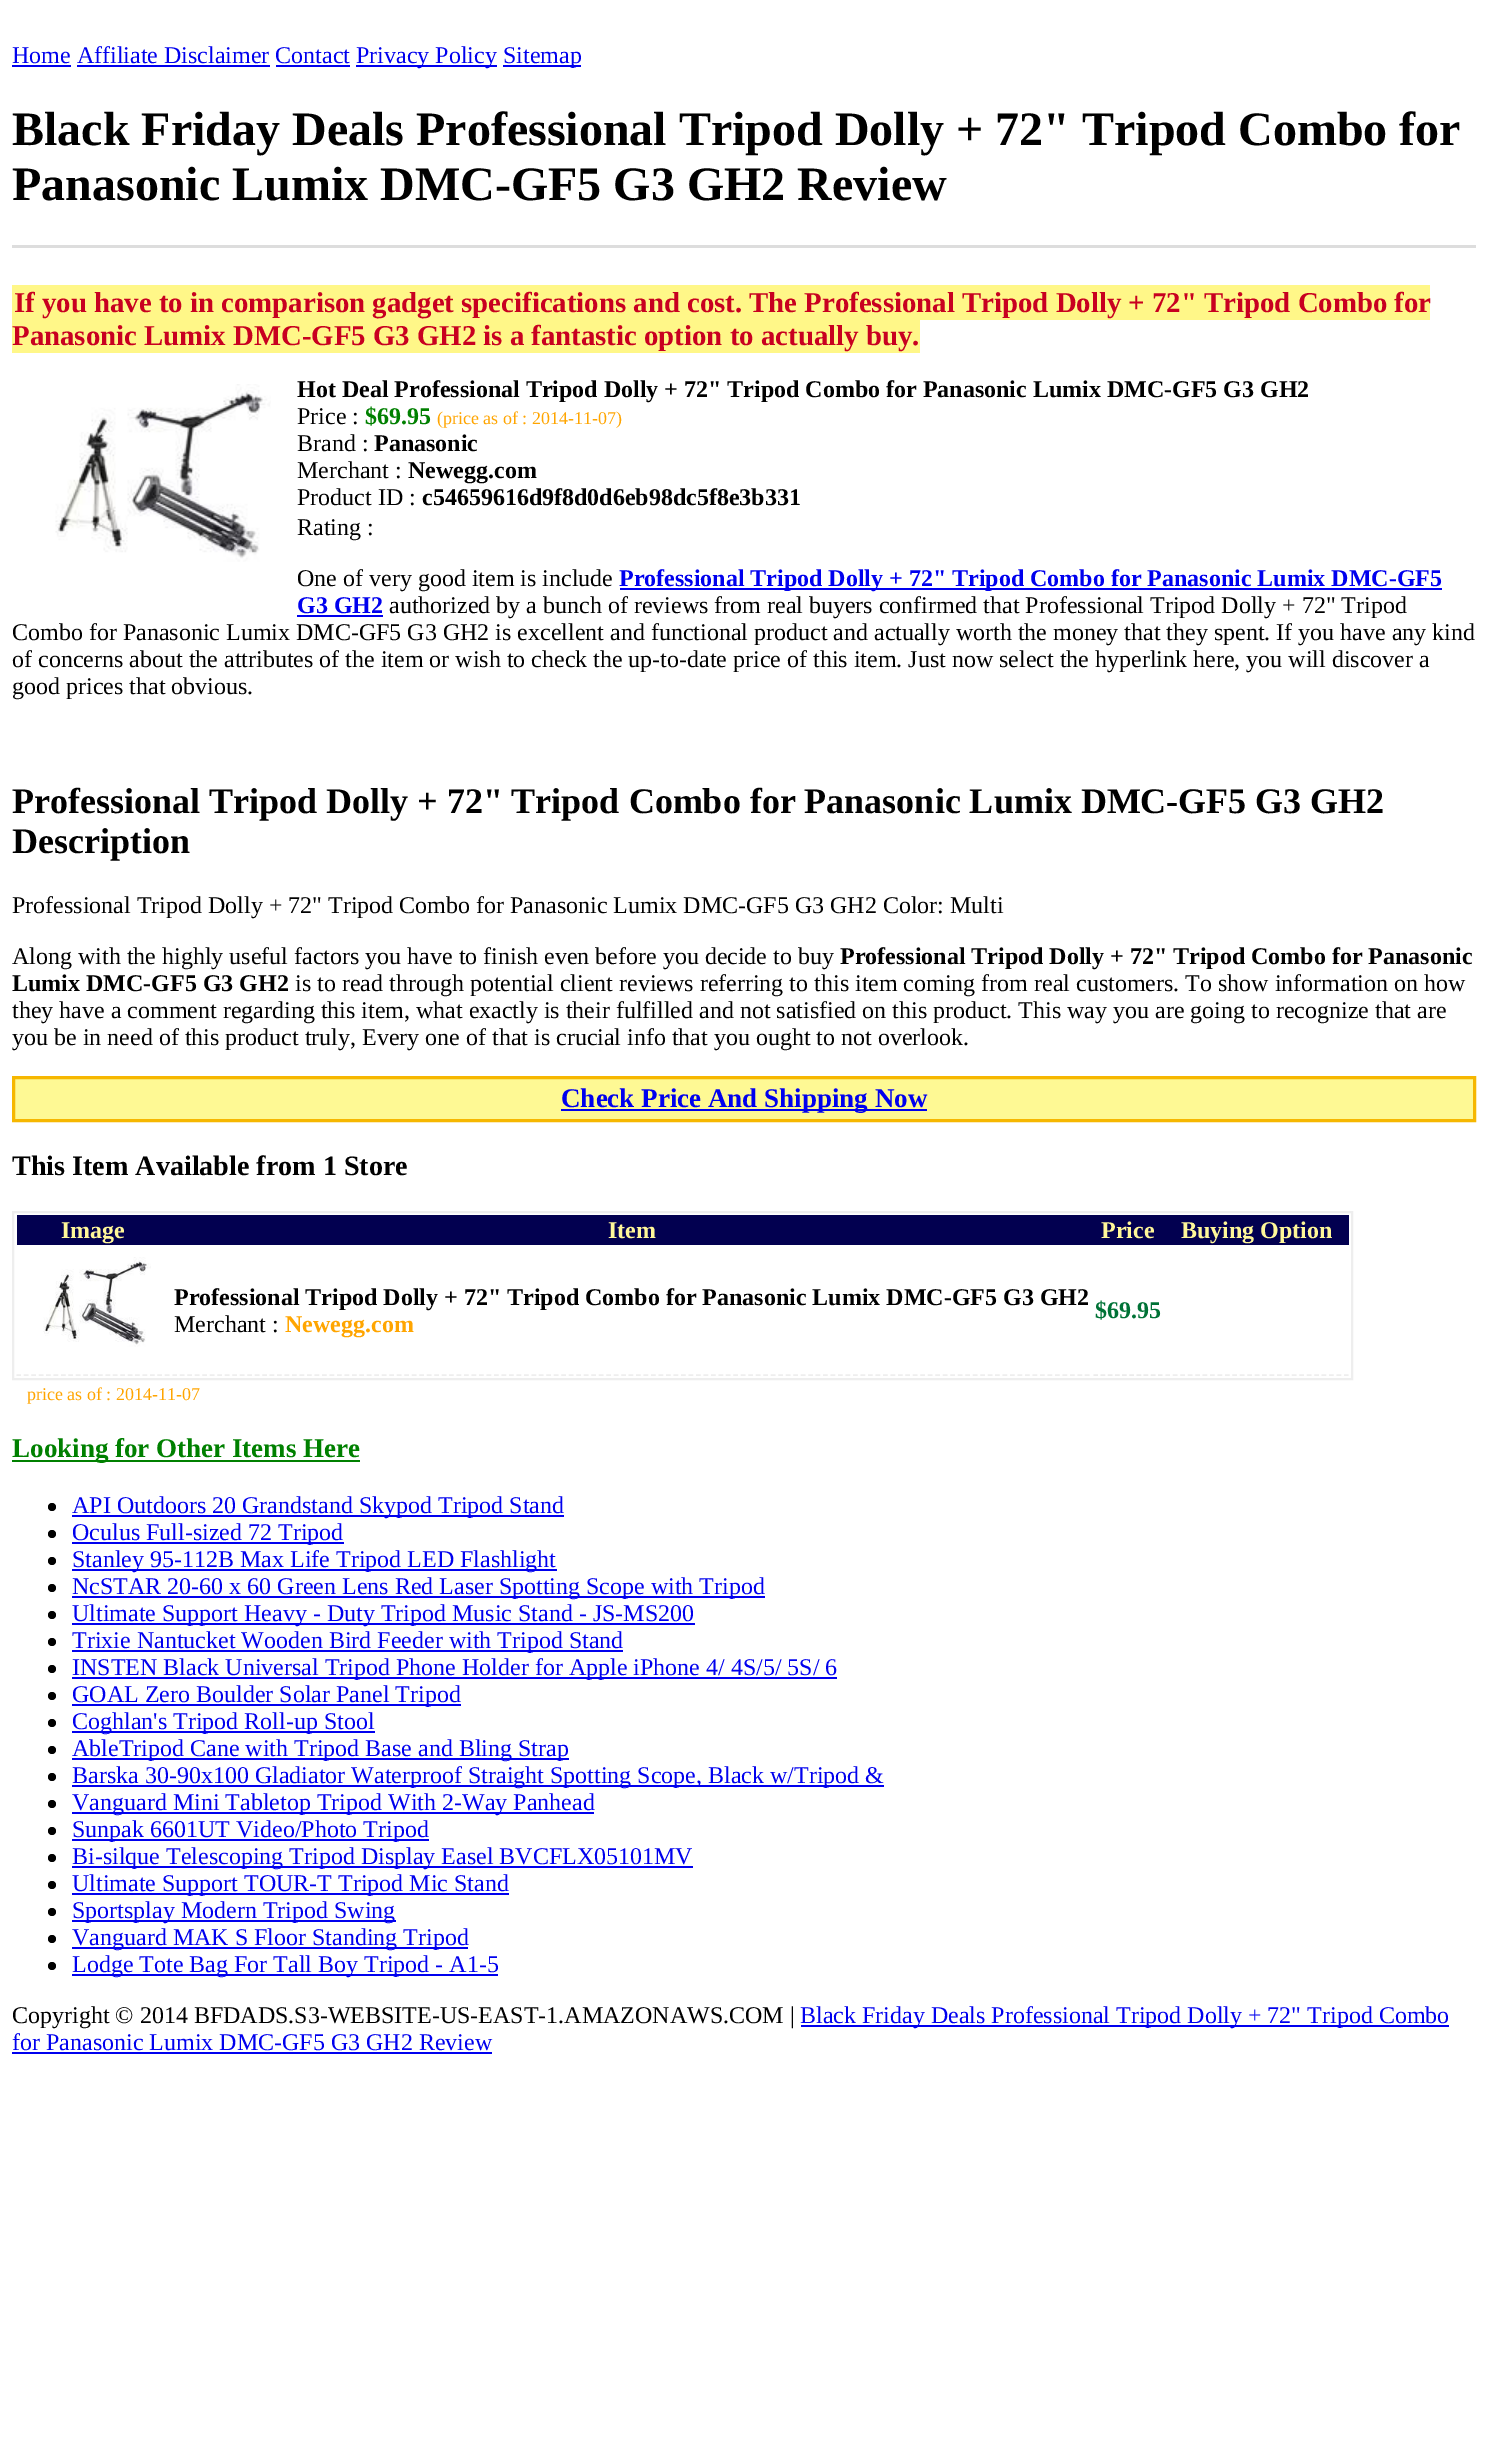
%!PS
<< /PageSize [1488 2461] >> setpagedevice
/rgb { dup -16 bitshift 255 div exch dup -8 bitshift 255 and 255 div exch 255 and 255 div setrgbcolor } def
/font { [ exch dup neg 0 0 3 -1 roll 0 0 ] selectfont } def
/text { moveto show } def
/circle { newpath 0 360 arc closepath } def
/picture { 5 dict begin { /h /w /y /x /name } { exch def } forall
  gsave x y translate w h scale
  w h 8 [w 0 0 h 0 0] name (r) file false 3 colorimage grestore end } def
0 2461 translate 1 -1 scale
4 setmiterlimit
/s1 { /LiberationSerif-Regular 24 font 16#0000EE rgb } def
/s2 { /LiberationSerif-Bold 48 font 16#000000 rgb } def
/s3 { /LiberationSerif-Bold 28.8 font 16#C80020 rgb } def
/s4 { /LiberationSerif-Bold 24 font 16#000000 rgb } def
/s5 { /LiberationSerif-Regular 24 font 16#000000 rgb } def
/s6 { /LiberationSerif-Bold 24 font 16#008000 rgb } def
/s7 { /LiberationSerif-Regular 18 font 16#FFA500 rgb } def
/s8 { /LiberationSerif-Bold 24 font 16#0000EE rgb } def
/s9 { /LiberationSerif-Bold 36 font 16#000000 rgb } def
/s10 { /LiberationSerif-Bold 27 font 16#0000EE rgb } def
/s11 { /LiberationSerif-Bold 28.1 font 16#000000 rgb } def
/s12 { /LiberationSerif-Bold 24 font 16#FFF799 rgb } def
/s13 { /LiberationSerif-Bold 24 font 16#FFA500 rgb } def
/s14 { /LiberationSerif-Bold 24 font 16#007236 rgb } def
/s15 { /LiberationSerif-Bold 27 font 16#008000 rgb } def
16#FFFFFF rgb
0 0 1488 2461 rectfill
s1
(Home Affiliate Disclaimer Contact) 12 63 text
12 65 59 2 rectfill
356 65 141 2 rectfill
(Privacy Policy) 356 63 text
503 65 78 2 rectfill
(Sitemap) 503 63 text
77 65 193 2 rectfill
276 65 74 2 rectfill
s2
(Black Friday Deals Professional Tripod Dolly + 72" Tripod Combo for) 12 145 text
(Panasonic Lumix DMC-GF5 G3 GH2 Review) 12 200 text
16#DDDDDD rgb
12 245 1464 3 rectfill
16#FFF788 rgb
12 285 1418 35 rectfill
s3
(If you have to in comparison gadget specifications and cost. The Professional Tripod Dolly + 72" Tripod Combo for) 14 312 text
16#FFF788 rgb
12 320 908 33 rectfill
s3
(Panasonic Lumix DMC-GF5 G3 GH2 is a fantastic option to actually buy.) 12 345 text
(pic1.raw) 55 384 216 178 picture
s4
(Hot Deal Professional Tripod Dolly + 72" Tripod Combo for Panasonic Lumix DMC-GF5 G3 GH2) 297 397 text
s5
(Price :) 297 424 text
s6
($69.95) 365 424 text
s7
(\(price as of : 2014-11-07\)) 437 424 text
s5
(Brand :) 297 451 text
s4
(Panasonic) 374 451 text
s5
(Merchant :) 297 478 text
s4
(Newegg.com) 408 478 text
s5
(Product ID :) 297 505 text
s4
(c54659616d9f8d0d6eb98dc5f8e3b331) 422 505 text
s5
(Rating :) 297 535 text
(One of very good item is include) 297 586 text
16#0000EE rgb
620 588 822 2 rectfill
s8
(Professional Tripod Dolly + 72" Tripod Combo for Panasonic Lumix DMC-GF5) 619 586 text
(G3 GH2) 297 613 text
297 615 86 2 rectfill
s5
(authorized by a bunch of reviews from real buyers confirmed that Professional Tripod Dolly + 72" Tripod) 389 613 text
(Combo for Panasonic Lumix DMC-GF5 G3 GH2 is excellent and functional product and actually worth the money that they spent. If you have any kind) 12 640 text
(of concerns about the attributes of the item or wish to check the up-to-date price of this item. Just now select the hyperlink here, you will discover a) 12 667 text
(good prices that obvious.) 12 694 text
s9
(Professional Tripod Dolly + 72" Tripod Combo for Panasonic Lumix DMC-GF5 G3 GH2) 12 813 text
(Description) 12 853 text
s5
(Professional Tripod Dolly + 72" Tripod Combo for Panasonic Lumix DMC-GF5 G3 GH2 Color: Multi) 12 913 text
(Along with the highly useful factors you have to finish even before you decide to buy) 12 964 text
s4
(Professional Tripod Dolly + 72" Tripod Combo for Panasonic) 840 964 text
(Lumix DMC-GF5 G3 GH2) 12 991 text
s5
(is to read through potential client reviews referring to this item coming from real customers. To show information on how) 295 991 text
(they have a comment regarding this item, what exactly is their fulfilled and not satisfied on this product. This way you are going to recognize that are) 12 1018 text
(you be in need of this product truly, Every one of that is crucial info that you ought to not overlook.) 12 1045 text
16#FEF994 rgb
13.5 1077.5 moveto 1474.5 1077.5 lineto 1474.5 1120.5 lineto 13.5 1120.5 lineto closepath gsave fill grestore
16#F6B700 rgb
3 setlinewidth
stroke
16#0000EE rgb
561 1109 366 2 rectfill
s10
(Check Price And Shipping Now) 561 1107 text
s11
(This Item Available from 1 Store) 12 1175 text
16#EEEEEE rgb
2 setlinewidth
13 1212 1339 167 rectstroke
16#020050 rgb
17 1215 1332 30 rectfill
s12
(Image) 61 1238 text
(Item) 608 1238 text
(Price) 1101 1238 text
(Buying Option) 1181 1238 text
16#EEEEEE rgb
1.5 setlinewidth
[4.5 2.92] 0 setdash
16.5 1375 moveto 169.5 1375 lineto stroke
(pic2.raw) 43 1257 108 90 picture
[4.5 2.98] 0 setdash
172.5 1375 moveto 1090.5 1375 lineto stroke
s4
(Professional Tripod Dolly + 72" Tripod Combo for Panasonic Lumix DMC-GF5 G3 GH2) 174 1305 text
s5
(Merchant :) 174 1332 text
s13
(Newegg.com) 285 1332 text
16#EBEBEB rgb
[4.5 2.67] 0 setdash
1093.5 1375 moveto 1162.5 1375 lineto stroke
s14
($69.95) 1095 1318 text
16#EEEEEE rgb
[4.5 2.94] 0 setdash
1165.5 1375 moveto 1348.5 1375 lineto stroke
s7
(price as of : 2014-11-07) 27 1400 text
16#008000 rgb
12 1460 348 2 rectfill
s15
(Looking for Other Items Here) 12 1457 text
16#000000 rgb
52 1507 4 circle fill
16#0000EE rgb
72 1515 492 2 rectfill
s1
(API Outdoors 20 Grandstand Skypod Tripod Stand) 72 1513 text
16#000000 rgb
52 1534 4 circle fill
16#0000EE rgb
72 1542 272 2 rectfill
(Oculus Full-sized 72 Tripod) 72 1540 text
16#000000 rgb
52 1561 4 circle fill
16#0000EE rgb
72 1569 485 2 rectfill
(Stanley 95-112B Max Life Tripod LED Flashlight) 72 1567 text
16#000000 rgb
52 1588 4 circle fill
16#0000EE rgb
72 1596 693 2 rectfill
(NcSTAR 20-60 x 60 Green Lens Red Laser Spotting Scope with Tripod) 72 1594 text
16#000000 rgb
52 1615 4 circle fill
16#0000EE rgb
72 1623 623 2 rectfill
(Ultimate Support Heavy - Duty Tripod Music Stand - JS-MS200) 72 1621 text
16#000000 rgb
52 1642 4 circle fill
16#0000EE rgb
72 1650 551 2 rectfill
(Trixie Nantucket Wooden Bird Feeder with Tripod Stand) 72 1648 text
16#000000 rgb
52 1669 4 circle fill
16#0000EE rgb
72 1677 765 2 rectfill
(INSTEN Black Universal Tripod Phone Holder for Apple iPhone 4/ 4S/5/ 5S/ 6) 72 1675 text
16#000000 rgb
52 1696 4 circle fill
16#0000EE rgb
72 1704 389 2 rectfill
(GOAL Zero Boulder Solar Panel Tripod) 72 1702 text
16#000000 rgb
52 1723 4 circle fill
16#0000EE rgb
72 1731 303 2 rectfill
(Coghlan's Tripod Roll-up Stool) 72 1729 text
16#000000 rgb
52 1750 4 circle fill
16#0000EE rgb
72 1758 497 2 rectfill
(AbleTripod Cane with Tripod Base and Bling Strap) 72 1756 text
16#000000 rgb
52 1777 4 circle fill
16#0000EE rgb
72 1785 812 2 rectfill
(Barska 30-90x100 Gladiator Waterproof Straight Spotting Scope, Black w/Tripod &) 72 1783 text
16#000000 rgb
52 1804 4 circle fill
16#0000EE rgb
72 1812 522 2 rectfill
(Vanguard Mini Tabletop Tripod With 2-Way Panhead) 72 1810 text
16#000000 rgb
52 1831 4 circle fill
16#0000EE rgb
72 1839 357 2 rectfill
(Sunpak 6601UT Video/Photo Tripod) 72 1837 text
16#000000 rgb
52 1858 4 circle fill
16#0000EE rgb
72 1866 621 2 rectfill
(Bi-silque Telescoping Tripod Display Easel BVCFLX05101MV) 72 1864 text
16#000000 rgb
52 1885 4 circle fill
16#0000EE rgb
72 1893 437 2 rectfill
(Ultimate Support TOUR-T Tripod Mic Stand) 72 1891 text
16#000000 rgb
52 1912 4 circle fill
16#0000EE rgb
72 1920 324 2 rectfill
(Sportsplay Modern Tripod Swing) 72 1918 text
16#000000 rgb
52 1939 4 circle fill
16#0000EE rgb
72 1947 396 2 rectfill
(Vanguard MAK S Floor Standing Tripod) 72 1945 text
16#000000 rgb
52 1966 4 circle fill
16#0000EE rgb
72 1974 426 2 rectfill
(Lodge Tote Bag For Tall Boy Tripod - A1-5) 72 1972 text
s5
(Copyright © 2014 BFDADS.S3-WEBSITE-US-EAST-1.AMAZONAWS.COM |) 12 2023 text
16#0000EE rgb
801 2025 648 2 rectfill
(Black Friday Deals Professional Tripod Dolly + 72" Tripod Combo) 800 2023 text
(for Panasonic Lumix DMC-GF5 G3 GH2 Review) 12 2050 text
12 2052 480 2 rectfill
showpage
